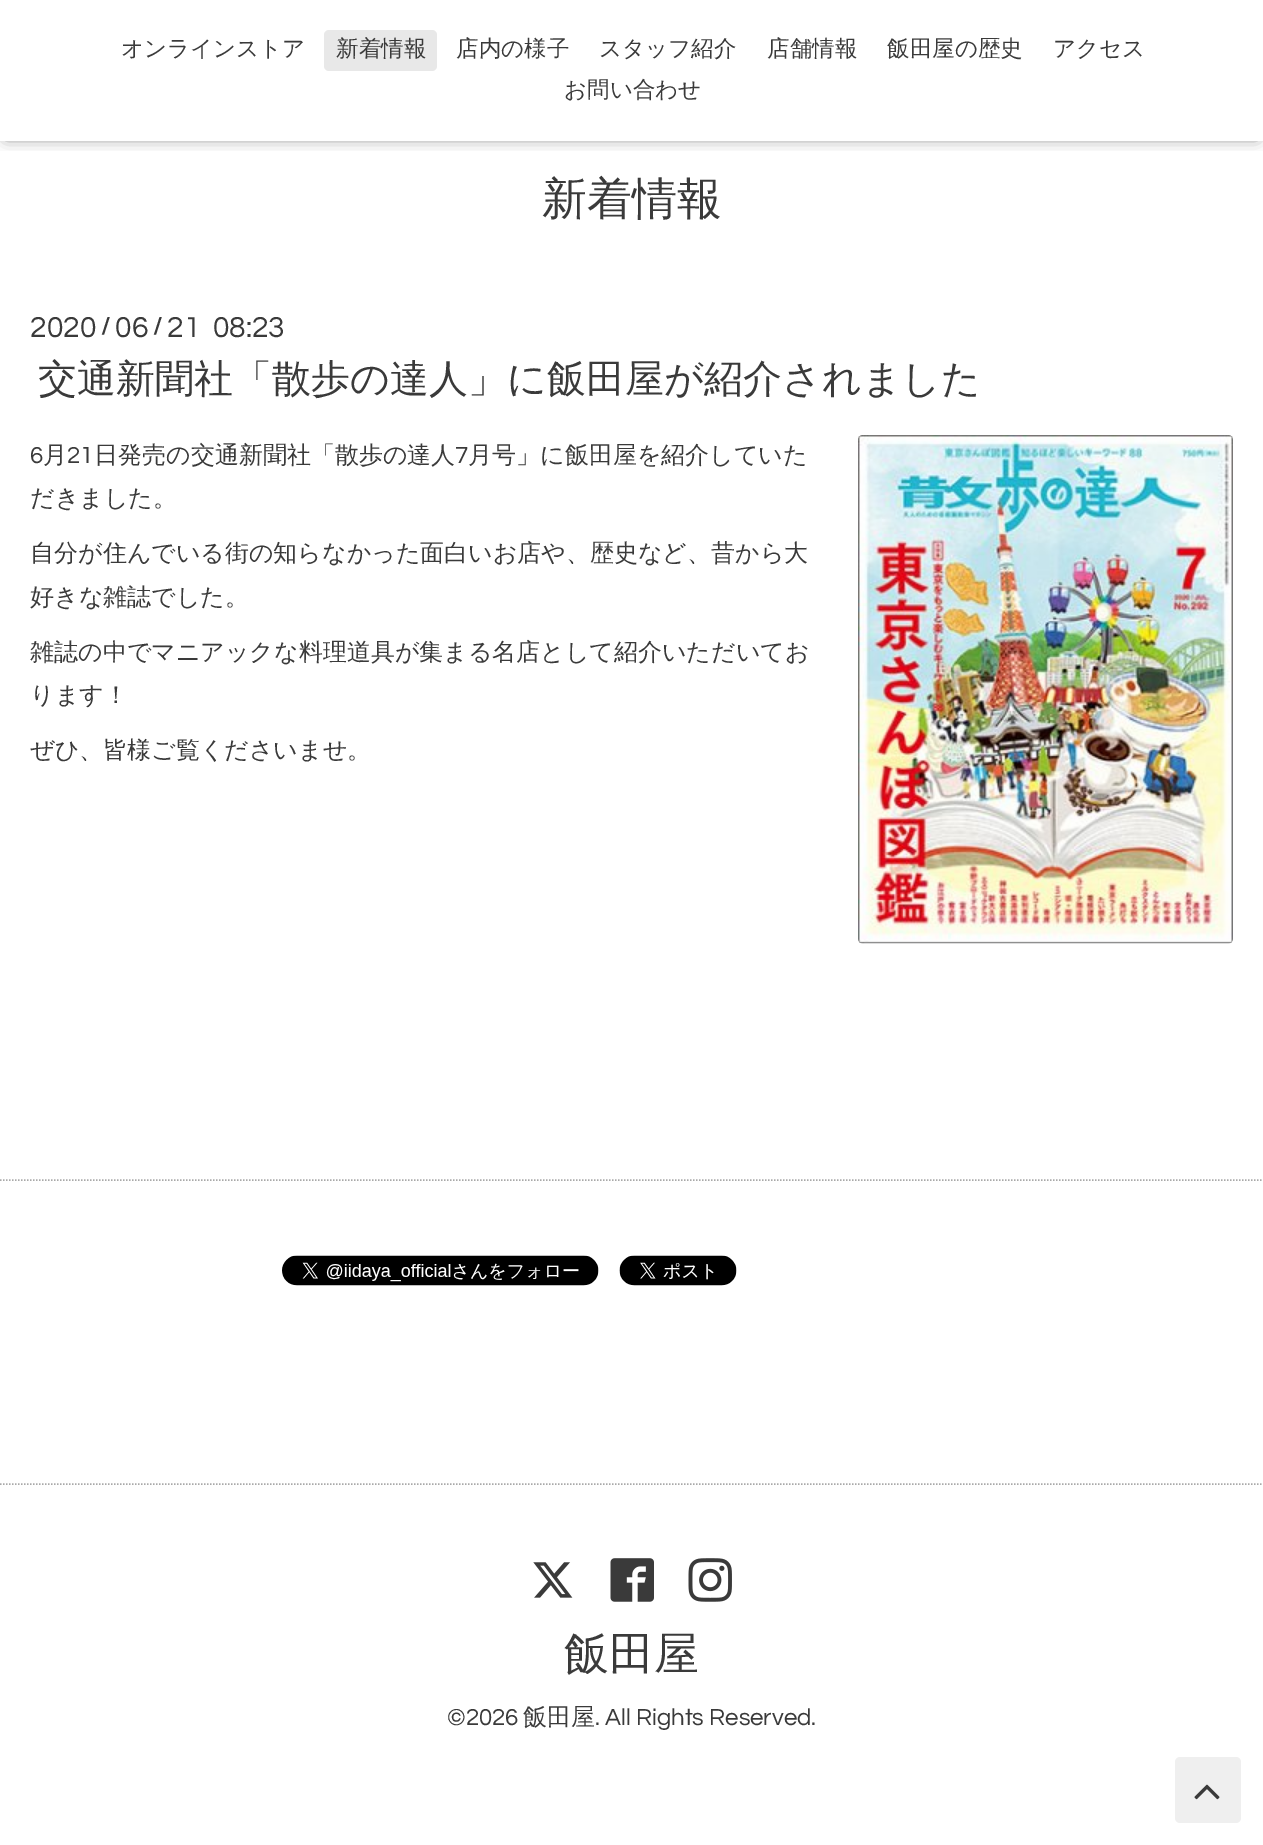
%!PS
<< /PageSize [1263 1845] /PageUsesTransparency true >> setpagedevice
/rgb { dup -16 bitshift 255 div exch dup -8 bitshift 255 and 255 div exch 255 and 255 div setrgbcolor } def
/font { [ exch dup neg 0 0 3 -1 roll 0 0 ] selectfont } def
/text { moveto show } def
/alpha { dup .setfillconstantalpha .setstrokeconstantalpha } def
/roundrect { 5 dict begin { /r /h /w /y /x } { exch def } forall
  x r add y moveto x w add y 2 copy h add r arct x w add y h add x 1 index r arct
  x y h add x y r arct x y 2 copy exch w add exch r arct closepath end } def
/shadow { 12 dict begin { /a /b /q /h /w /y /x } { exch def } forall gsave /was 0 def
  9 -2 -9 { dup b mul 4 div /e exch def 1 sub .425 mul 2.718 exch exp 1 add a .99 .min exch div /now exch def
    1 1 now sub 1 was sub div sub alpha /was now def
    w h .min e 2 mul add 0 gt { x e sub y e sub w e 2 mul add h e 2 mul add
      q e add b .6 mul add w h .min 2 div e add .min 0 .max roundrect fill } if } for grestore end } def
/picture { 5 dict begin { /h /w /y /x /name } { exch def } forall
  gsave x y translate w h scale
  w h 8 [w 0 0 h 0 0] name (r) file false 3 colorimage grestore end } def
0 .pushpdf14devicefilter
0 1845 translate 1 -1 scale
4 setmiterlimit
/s1 { /WenQuanYiZenHei-Medium 22.5 font 16#3A3A3A rgb } def
/s2 { /WenQuanYiZenHei-Medium 45 font 16#3A3A3A rgb } def
/s3 { /Questrial-Regular 30 font 16#3A3A3A rgb } def
/s4 { /Questrial-Bold 24 font 16#3A3A3A rgb } def
/s5 { /WenQuanYiZenHei-Medium 39 font 16#3A3A3A rgb } def
/s6 { /Questrial-Regular 24 font 16#3A3A3A rgb } def
/s7 { /WenQuanYiZenHei-Medium 24 font 16#3A3A3A rgb } def
16#FFFFFF rgb
0 0 1263 1845 rectfill
gsave
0 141 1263 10 rectclip
16#000000 rgb
6 8 1251 129 0 7.5 0.6 shadow
grestore
s1
(オンラインストア) 121 56 text
16#E8E8E8 rgb
324 30 113 41 5 roundrect fill
s1
(新着情報) 336 56 text
(店内の様子) 456 56 text
(スタッフ紹介) 599 56 text
(店舗情報) 767 56 text
(飯田屋の歴史) 887 56 text
(アクセス) 1053 56 text
(お問い合わせ) 564 97 text
s2
(新着情報) 542 214 text
s3
(2020) 30 337 text
s4
(/) 101 334 text
s3
(06) 115 337 text
s4
(/) 153 334 text
s3
(21  08:23) 167 337 text
s5
(交通新聞社「散歩の達人」に飯田屋が紹介されました) 38 392 text
s6
(6) 30 463 text
s7
(月) 43 463 text
s6
(21) 67 463 text
s7
(日発売の交通新聞社「散歩の達人) 94 463 text
s6
(7) 455 463 text
s7
(月号」に飯田屋を紹介していた) 468 463 text
(だきました。) 30 506 text
(自分が住んでいる街の知らなかった面白いお店や、歴史など、昔から大) 30 561 text
(好きな雑誌でした。) 30 605 text
(雑誌の中でマニアックな料理道具が集まる名店として紹介いただいてお) 30 660 text
(ります！) 30 703 text
(ぜひ、皆様ご覧くださいませ。) 30 758 text
(pic1.raw) 858 435 375 509 picture
16#A9A9A9 rgb
1.5 setlinewidth
[1.5 1.5] 0 setdash
0 1180 moveto 1263 1180 lineto stroke
(pic2.raw) 282 1255 317 31 picture
(pic3.raw) 619 1255 118 31 picture
0 1484 moveto 1263 1484 lineto stroke
(pic4.raw) 533 1562 40 36 picture
(pic5.raw) 610 1558 44 44 picture
(pic6.raw) 688 1558 44 44 picture
s2
(飯田屋) 564 1669 text
s6
(©2026) 447 1725 text
s7
(飯田屋) 523 1725 text
s6
(. All Rights Reserved.) 595 1725 text
16#EFEFEF rgb
1175 1757 66 66 5 roundrect fill
(pic7.raw) 1194 1784 26 16 picture
.poppdf14devicefilter showpage
